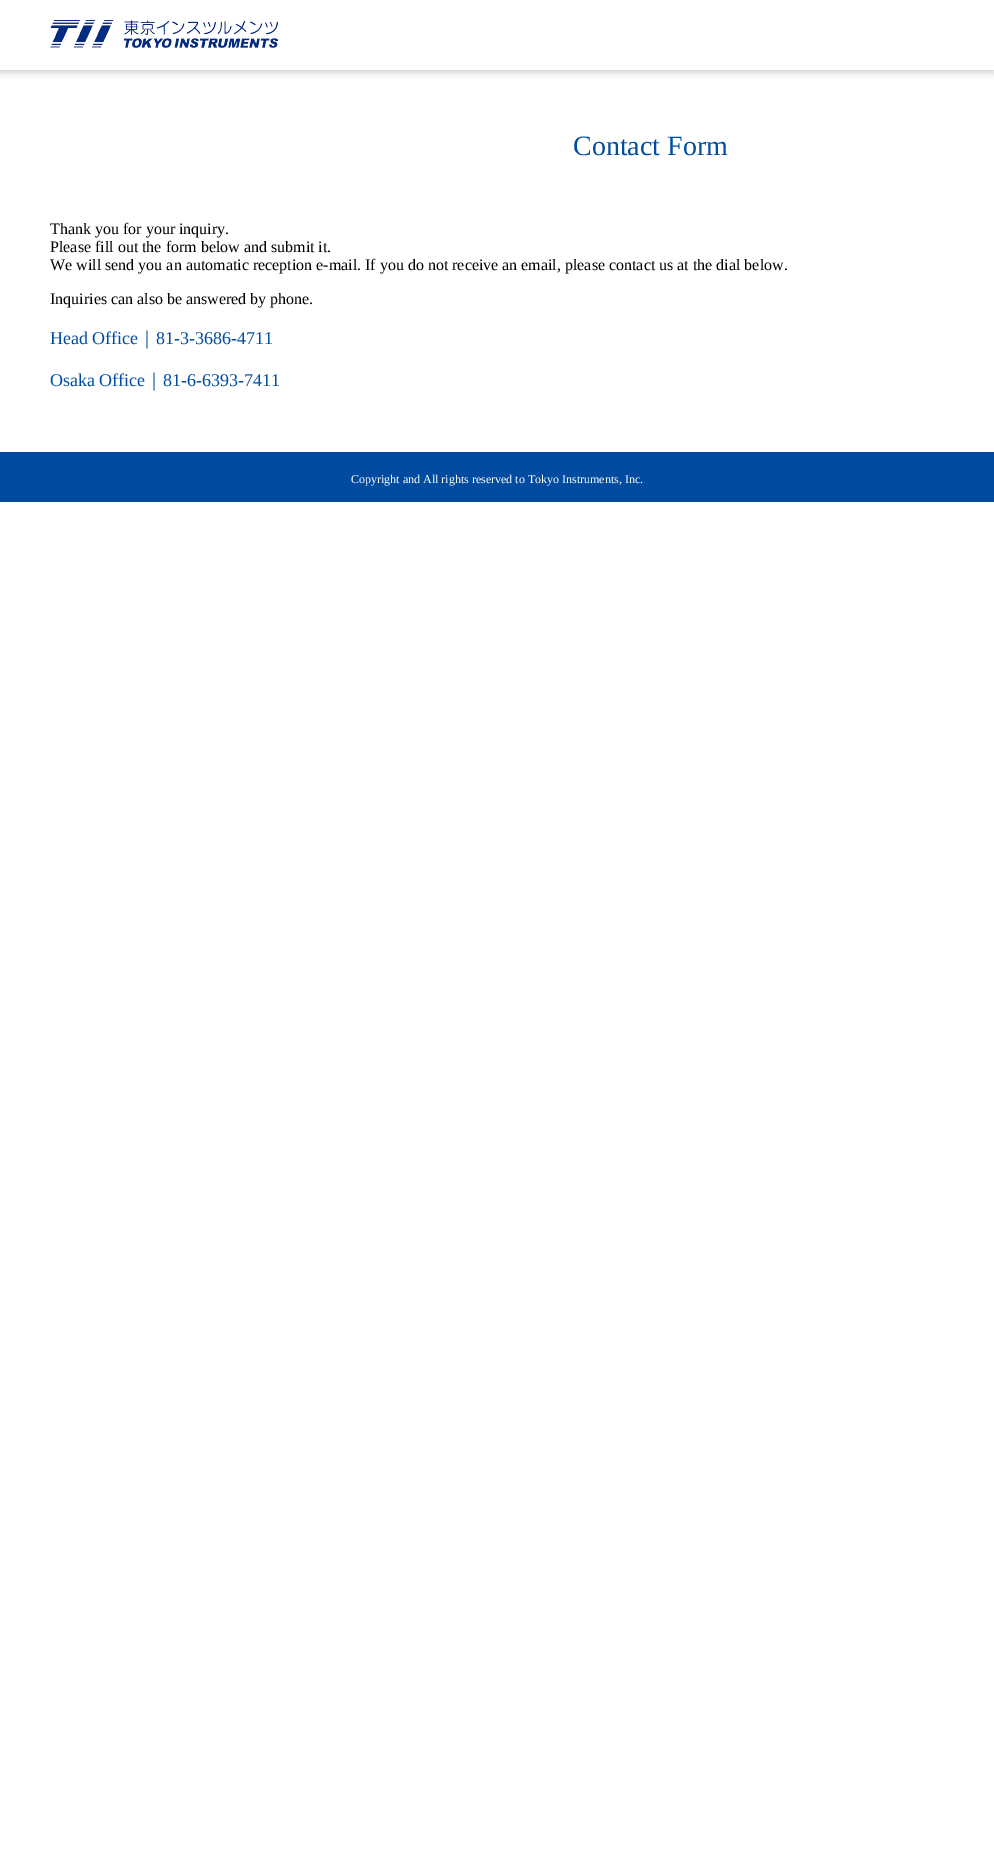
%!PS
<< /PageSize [994 1870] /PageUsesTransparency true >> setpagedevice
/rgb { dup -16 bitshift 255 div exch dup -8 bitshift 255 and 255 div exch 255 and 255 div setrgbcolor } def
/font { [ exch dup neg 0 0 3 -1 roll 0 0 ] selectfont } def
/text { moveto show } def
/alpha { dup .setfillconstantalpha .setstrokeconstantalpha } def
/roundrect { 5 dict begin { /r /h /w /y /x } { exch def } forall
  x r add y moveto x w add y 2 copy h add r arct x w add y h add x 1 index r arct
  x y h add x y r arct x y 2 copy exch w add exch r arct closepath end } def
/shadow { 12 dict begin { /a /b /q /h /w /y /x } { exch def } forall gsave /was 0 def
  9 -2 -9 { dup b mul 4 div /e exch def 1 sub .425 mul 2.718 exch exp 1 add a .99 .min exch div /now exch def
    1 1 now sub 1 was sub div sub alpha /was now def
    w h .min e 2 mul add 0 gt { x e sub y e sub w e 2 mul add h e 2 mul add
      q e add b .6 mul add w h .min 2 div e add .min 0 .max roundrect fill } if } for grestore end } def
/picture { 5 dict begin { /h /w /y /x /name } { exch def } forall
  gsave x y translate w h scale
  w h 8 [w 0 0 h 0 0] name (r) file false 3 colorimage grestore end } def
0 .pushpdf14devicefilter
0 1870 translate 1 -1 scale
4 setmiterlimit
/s1 { /LiberationSerif-Regular 28 font 16#004C9F rgb } def
/s2 { /LiberationSerif-Regular 16 font 16#000000 rgb } def
/s3 { /LiberationSerif-Regular 18 font 16#004C9F rgb } def
/s4 { /WenQuanYiZenHei-Medium 18 font 16#004C9F rgb } def
/s5 { /LiberationSerif-Regular 12 font 16#FFFFFF rgb } def
16#FFFFFF rgb
0 0 994 1870 rectfill
gsave
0 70 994 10 rectclip
16#AAAAAA rgb
0 0 994 70 0 5 1 shadow
grestore
(pic1.raw) 50 20 228 28 picture
s1
(Contact Form) 573 155 text
s2
(Thank you for your inquiry.) 50 234 text
(Please fill out the form below and submit it.) 50 252 text
(We will send you an automatic reception e-mail. If you do not receive an email, please contact us at the dial below.) 50 270 text
(Inquiries can also be answered by phone.) 50 304 text
s3
(Head Office) 50 344 text
s4
(｜) 138 344 text
s3
(81-3-3686-4711) 156 344 text
(Osaka Office) 50 386 text
s4
(｜) 145 386 text
s3
(81-6-6393-7411) 163 386 text
16#004BA0 rgb
0 452 994 50 rectfill
s5
(Copyright and All rights reserved to Tokyo Instruments, Inc.) 351 483 text
.poppdf14devicefilter showpage
